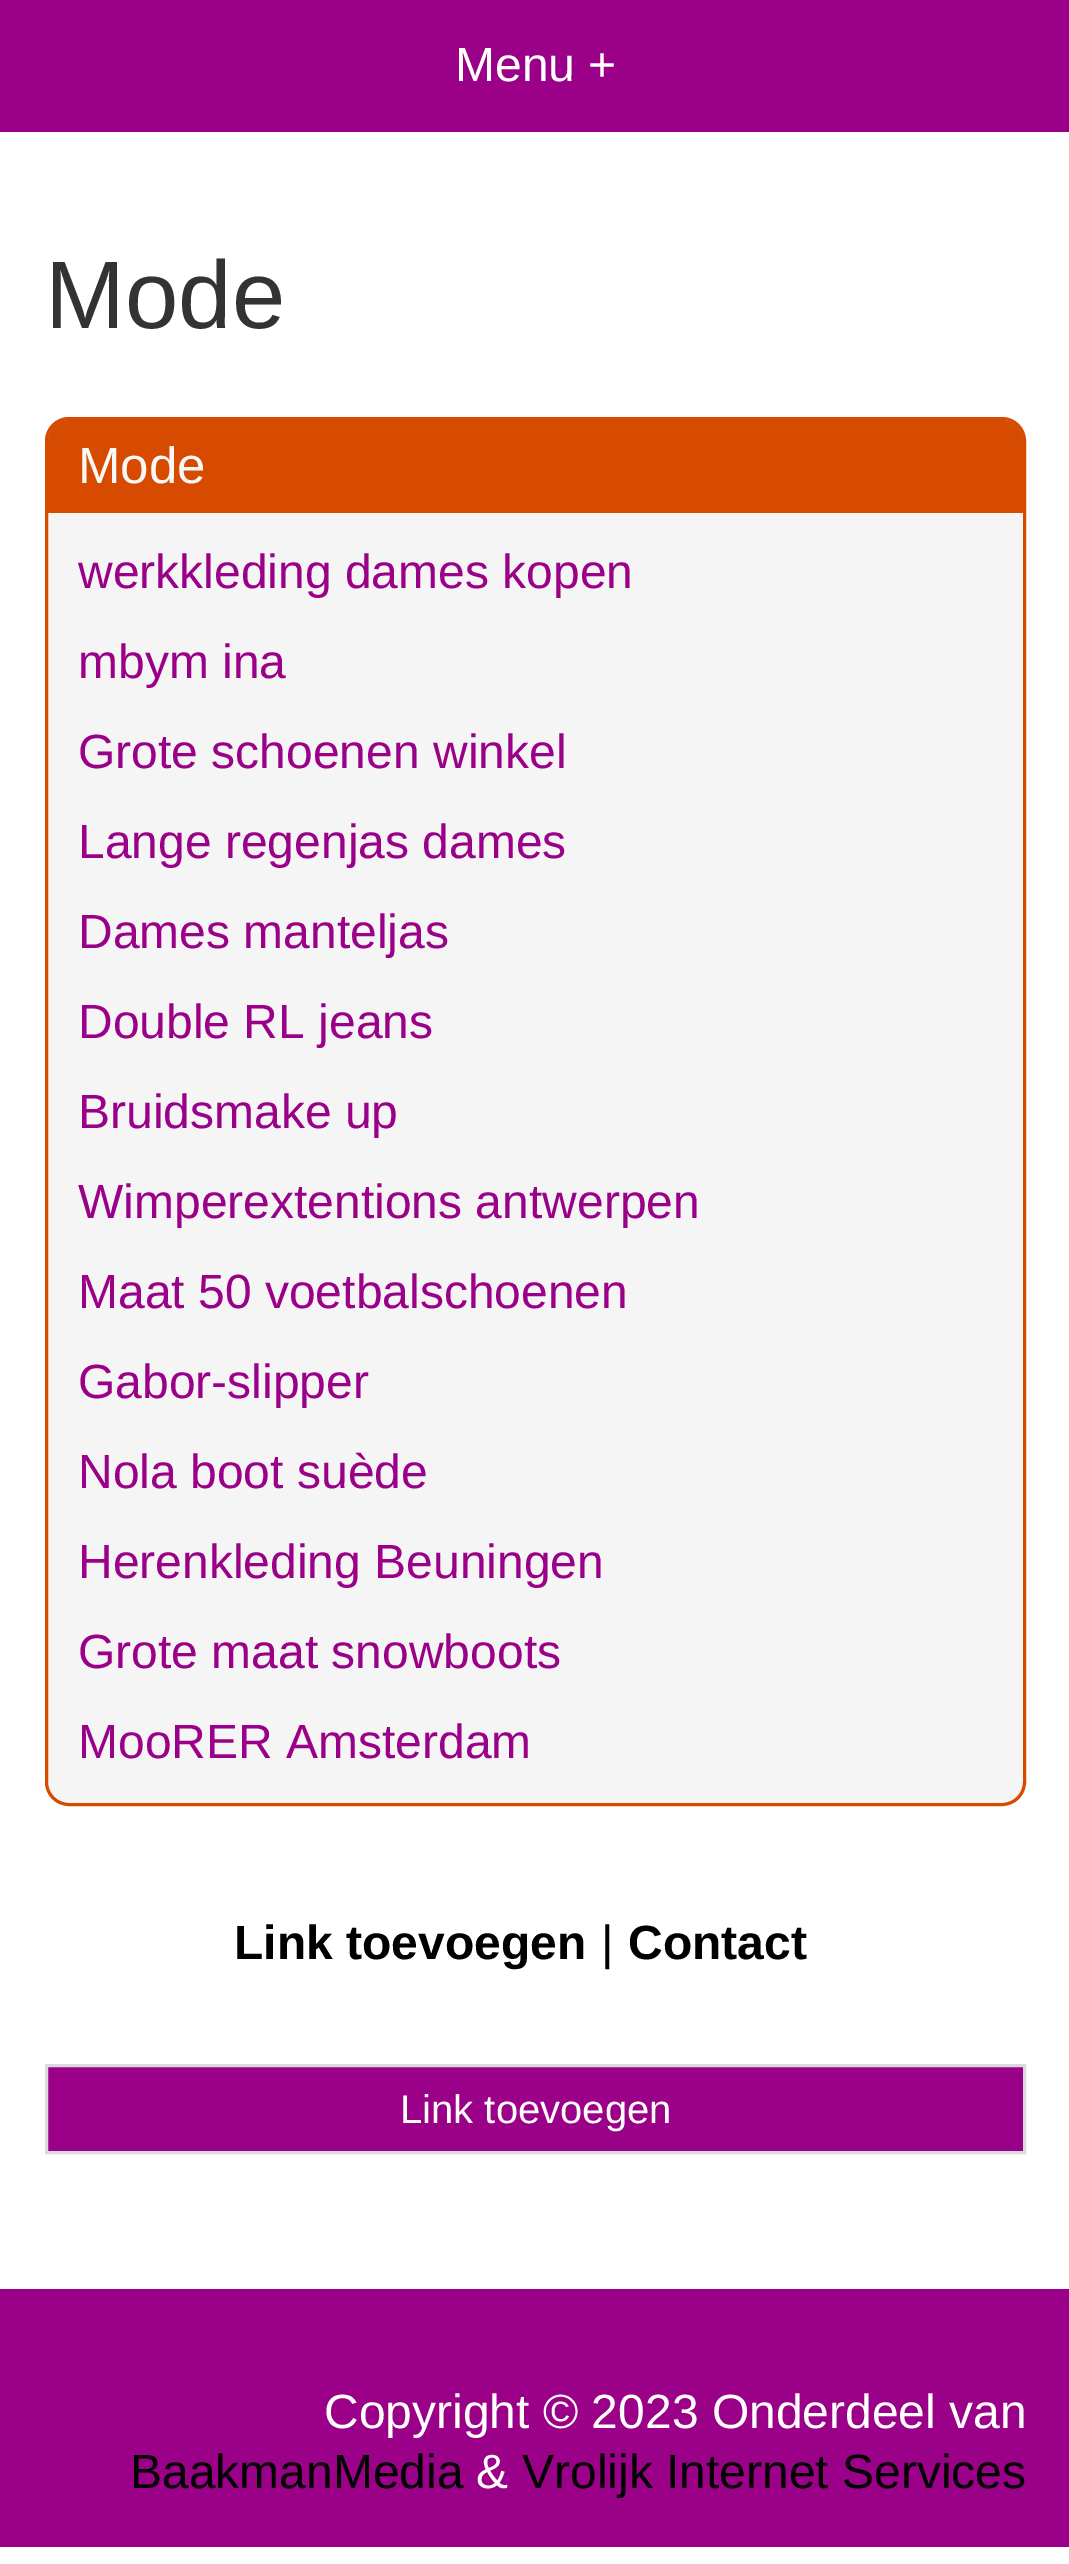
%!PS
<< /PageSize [1069 2564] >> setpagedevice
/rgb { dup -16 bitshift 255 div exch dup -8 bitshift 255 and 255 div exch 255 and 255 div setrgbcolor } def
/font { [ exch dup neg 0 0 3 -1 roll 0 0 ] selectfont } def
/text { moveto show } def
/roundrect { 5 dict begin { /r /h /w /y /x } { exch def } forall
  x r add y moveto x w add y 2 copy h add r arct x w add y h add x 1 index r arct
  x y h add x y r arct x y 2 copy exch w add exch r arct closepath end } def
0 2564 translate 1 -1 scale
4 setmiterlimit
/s1 { /LiberationSans-Regular 48 font 16#FFFFFF rgb } def
/s2 { /LiberationSans-Regular 96 font 16#333333 rgb } def
/s3 { /LiberationSans-Regular 51 font 16#F8F8F7 rgb } def
/s4 { /LiberationSans-Regular 48 font 16#9B0089 rgb } def
/s5 { /LiberationSans-Bold 48 font 16#000000 rgb } def
/s6 { /LiberationSans-Regular 48 font 16#000000 rgb } def
/s7 { /LiberationSans-Regular 40 font 16#FFFFFF rgb } def
16#FFFFFF rgb
0 0 1069 2564 rectfill
16#9B0089 rgb
0 0 1069 132 rectfill
s1
(Menu +) 455 81 text
s2
(Mode) 45 328 text
16#F5F5F5 rgb
46.5 418.5 978 1386 22.5 roundrect gsave fill grestore
16#D64B00 rgb
3 setlinewidth
stroke
69 420 moveto 1002 420 lineto 1013.5 420 1023 429.5 1023 441 curveto 1023 513 lineto 48 513 lineto 48 441 lineto 48 429.5 57.5 420 69 420 curveto closepath fill
s3
(Mode) 78 483 text
s4
(werkkleding dames kopen) 78 588 text
(mbym ina) 78 678 text
(Grote schoenen winkel) 78 768 text
(Lange regenjas dames) 78 858 text
(Dames manteljas) 78 948 text
(Double RL jeans) 78 1038 text
(Bruidsmake up) 78 1128 text
(Wimperextentions antwerpen) 78 1218 text
(Maat 50 voetbalschoenen) 78 1308 text
(Gabor-slipper) 78 1398 text
(Nola boot suède) 78 1488 text
(Herenkleding Beuningen) 78 1578 text
(Grote maat snowboots) 78 1668 text
(MooRER Amsterdam) 78 1758 text
s5
(Link toevoegen) 234 1959 text
s6
(|) 601 1959 text
s5
(Contact) 628 1959 text
16#9B0089 rgb
46.5 2065.5 moveto 1024.5 2065.5 lineto 1024.5 2152.5 lineto 46.5 2152.5 lineto closepath gsave fill grestore
16#DADADA rgb
stroke
s7
(Link toevoegen) 400 2123 text
16#9B0089 rgb
0 2289 1069 258 rectfill
s1
(Copyright © 2023 Onderdeel van) 324 2428 text
s6
(BaakmanMedia) 130 2488 text
s1
(&) 476 2488 text
s6
(Vrolijk Internet Services) 522 2488 text
showpage
